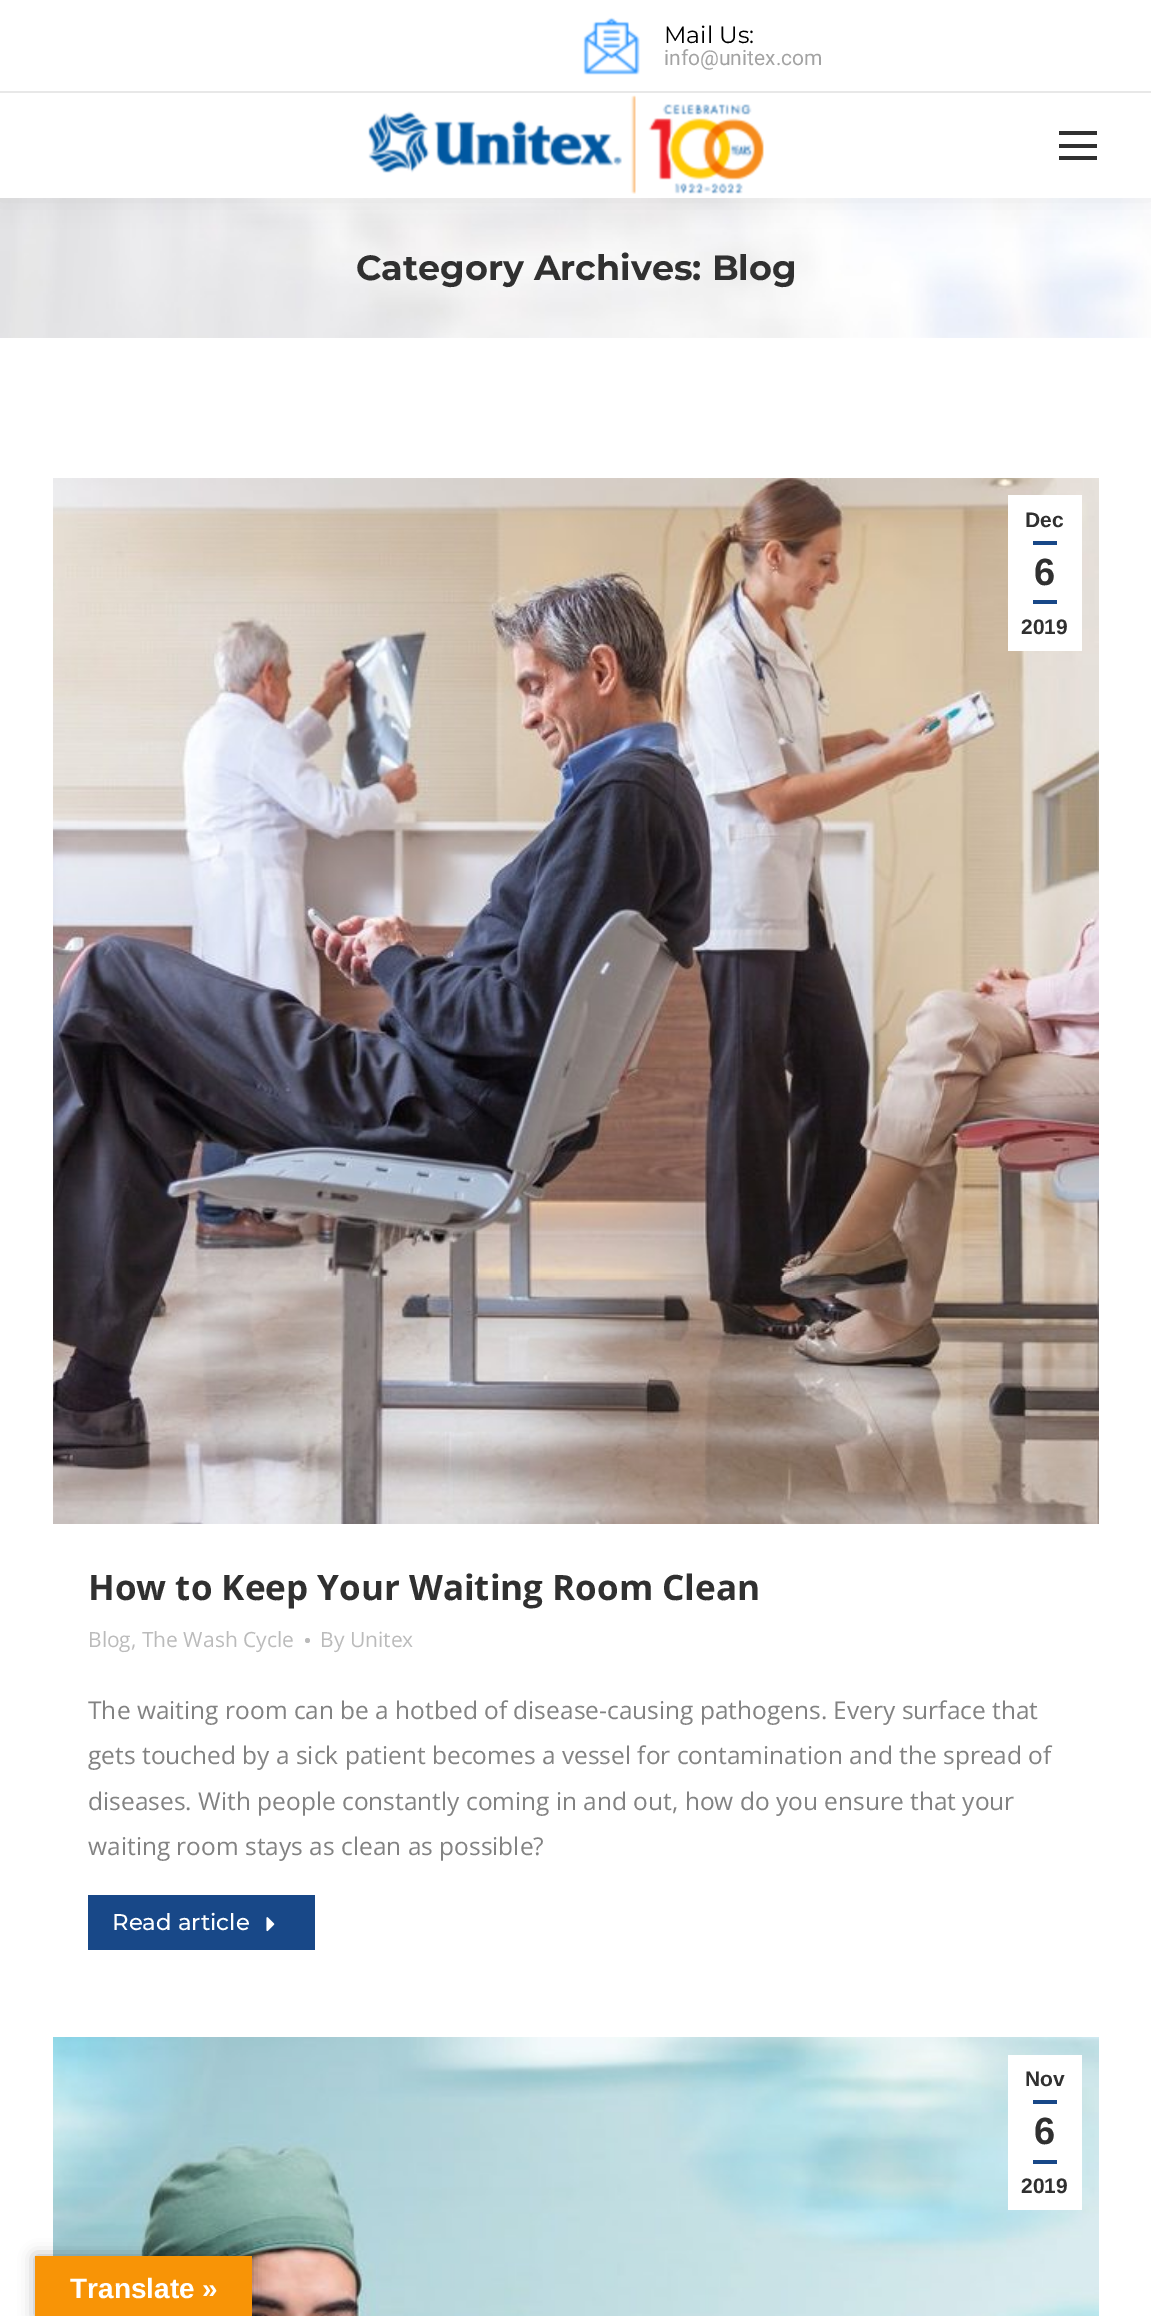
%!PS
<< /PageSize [1151 2316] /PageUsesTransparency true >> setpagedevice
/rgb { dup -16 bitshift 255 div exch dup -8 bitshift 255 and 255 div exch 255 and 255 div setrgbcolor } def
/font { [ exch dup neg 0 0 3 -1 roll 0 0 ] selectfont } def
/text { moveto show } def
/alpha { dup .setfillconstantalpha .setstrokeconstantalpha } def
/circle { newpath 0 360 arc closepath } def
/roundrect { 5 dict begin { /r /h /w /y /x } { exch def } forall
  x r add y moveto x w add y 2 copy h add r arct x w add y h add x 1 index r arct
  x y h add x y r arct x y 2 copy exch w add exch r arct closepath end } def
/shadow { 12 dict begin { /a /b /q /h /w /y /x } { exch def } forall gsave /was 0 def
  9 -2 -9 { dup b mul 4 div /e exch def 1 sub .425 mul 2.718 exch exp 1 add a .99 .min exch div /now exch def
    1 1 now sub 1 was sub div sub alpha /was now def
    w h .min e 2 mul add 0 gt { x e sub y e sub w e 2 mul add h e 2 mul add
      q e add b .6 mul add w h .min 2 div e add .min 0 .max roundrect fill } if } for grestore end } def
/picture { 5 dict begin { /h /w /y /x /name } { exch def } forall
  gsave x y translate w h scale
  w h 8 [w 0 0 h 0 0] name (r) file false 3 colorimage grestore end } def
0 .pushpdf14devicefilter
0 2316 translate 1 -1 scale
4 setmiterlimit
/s1 { /Montserrat-Regular 23.5 font 16#000000 rgb } def
/s2 { /Roboto-Regular 21 font 16#A3A3A3 rgb } def
/s3 { /Montserrat-Bold 35 font 16#303030 rgb } def
/s4 { /LiberationSans-Bold 21 font 16#303030 rgb } def
/s5 { /LiberationSans-Bold 38 font 16#303030 rgb } def
/s6 { /OpenSans-Bold 35 font 16#303030 rgb } def
/s7 { /OpenSans-Regular 21 font 16#BBBBBB rgb } def
/s8 { /OpenSans-Regular 24.5 font 16#828282 rgb } def
/s9 { /Montserrat-Medium 22.75 font 16#FFFFFF rgb } def
/s10 { /LiberationSans-Bold 28 font 16#FFFFFF rgb } def
16#FFFFFF rgb
0 0 1151 2316 rectfill
(pic3.raw) 0 198 1151 140 picture
16#000000 rgb
-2 -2 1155 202 0 13 0.07 shadow
16#FFFFFF rgb
0 0 1151 198 rectfill
(pic1.raw) 583 17 57 58 picture
s1
(Mail Us:) 664 43 text
s2
(info@unitex.com) 664 65 text
16#E8E8E8 rgb
0 91 1151 2 rectfill
(pic2.raw) 368 95 396 99 picture
16#303030 rgb
1059 131 38 4 rectfill
1059 144 38 4 rectfill
1059 156 38 4 rectfill
s3
(Category Archives: Blog) 356 280 text
(pic4.raw) 53 478 1046 1046 picture
16#FFFFFF rgb
1008 495 74 156 rectfill
s4
(Dec) 1025 527 text
16#184888 rgb
1033 541 24 4 rectfill
s5
(6) 1034 585 text
16#184888 rgb
1033 600 24 4 rectfill
s4
(2019) 1021 634 text
s6
(How to Keep Your Waiting Room Clean) 88 1600 text
s7
(Blog, The Wash Cycle) 88 1647 text
307.5 1640.5 2.5 circle fill
(By Unitex) 320 1647 text
gsave
88 1687 976 200 rectclip
s8
(The waiting room can be a hotbed of disease-causing pathogens. Every surface that) 88 1719 text
grestore
s8
(gets touched by a sick patient becomes a vessel for contamination and the spread of) 88 1764 text
(diseases. With people constantly coming in and out, how do you ensure that your) 88 1810 text
(waiting room stays as clean as possible?) 88 1855 text
16#184888 rgb
88 1895 227 55 rectfill
s9
(Read article) 112 1930 text
(pic5.raw) 266 1917 9 15 picture
(pic6.raw) 53 2037 1046 279 picture
1008 2055 74 155 rectfill
s4
(Nov) 1025 2086 text
16#184888 rgb
1033 2100 24 4 rectfill
s5
(6) 1034 2144 text
16#184888 rgb
1033 2160 24 4 rectfill
s4
(2019) 1021 2193 text
16#000000 rgb
35 2256 217 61 0 8 0.3 shadow
16#F89406 rgb
35 2256 217 60 rectfill
s10
(Translate ») 70 2298 text
.poppdf14devicefilter showpage
